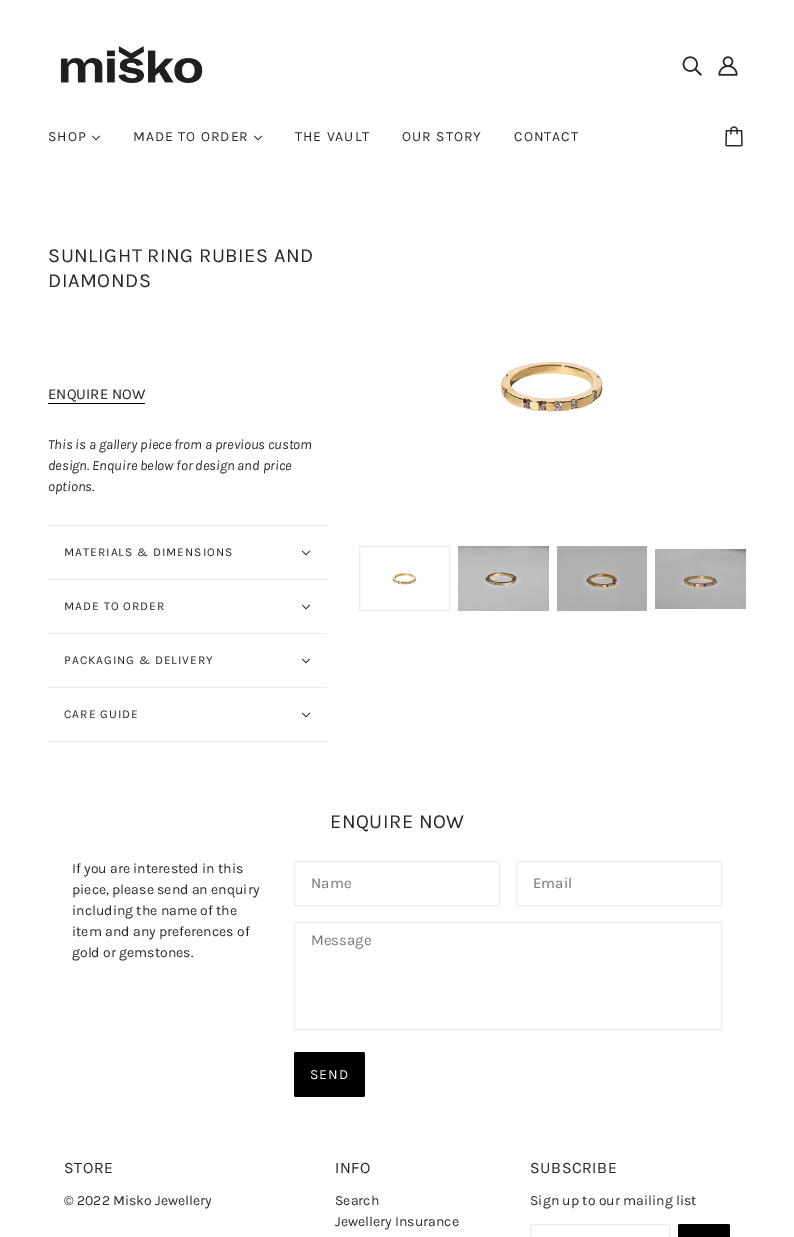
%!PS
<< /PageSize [794 1237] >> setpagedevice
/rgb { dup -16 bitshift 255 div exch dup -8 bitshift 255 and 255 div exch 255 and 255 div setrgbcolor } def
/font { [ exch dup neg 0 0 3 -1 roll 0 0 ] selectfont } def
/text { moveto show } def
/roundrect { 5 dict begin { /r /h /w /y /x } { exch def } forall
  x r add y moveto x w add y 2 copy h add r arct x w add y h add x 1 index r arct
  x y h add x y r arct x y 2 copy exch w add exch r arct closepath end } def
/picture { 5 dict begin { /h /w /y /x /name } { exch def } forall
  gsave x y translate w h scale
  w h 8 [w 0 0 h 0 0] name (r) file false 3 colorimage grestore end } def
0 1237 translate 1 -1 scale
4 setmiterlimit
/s1 { /Karla-Regular 15 font 16#272727 rgb } def
/s2 { /Karla-Italic 14 font 16#272727 rgb } def
/s3 { /Karla-Regular 14 font 16#272727 rgb } def
/s4 { /Karla-Regular 15 font 16#757575 rgb } def
16#FFFFFF rgb
0 0 794 1237 rectfill
(pic1.raw) 60 46 143 37 picture
(pic2.raw) 682 56 20 20 picture
(pic3.raw) 718 56 20 20 picture
/Karla-Regular 14 font
16#272727 rgb
48 141 moveto 1 0 (SHOP) ashow
(pic4.raw) 91 135 10 6 picture
133 141 moveto 1 0 (MADE TO ORDER) ashow
(pic4.raw) 253 135 10 6 picture
295 141 moveto 1 0 (THE VAULT) ashow
402 141 moveto 1 0 (OUR STORY) ashow
514 141 moveto 1 0 (CONTACT) ashow
(pic5.raw) 725 126 18 21 picture
/Karla-Regular 20 font
48 262 moveto 0.5 0 (SUNLIGHT RING RUBIES AND) ashow
48 287 moveto 0.5 0 (DIAMONDS) ashow
s1
(ENQUIRE NOW) 48 399 text
16#000000 rgb
48 403 97 1 rectfill
s2
(This is a gallery piece from a previous custom) 48 449 text
(design. Enquire below for design and price) 48 470 text
(options.) 48 491 text
16#EBEBEB rgb
48 525 279 1 rectfill
48 579 279 1 rectfill
/Karla-Regular 12 font
16#272727 rgb
64 556 moveto 1 0 (MATERIALS & DIMENSIONS) ashow
(pic4.raw) 301 550 10 6 picture
16#EBEBEB rgb
48 633 279 1 rectfill
16#272727 rgb
64 610 moveto 1 0 (MADE TO ORDER) ashow
(pic4.raw) 301 604 10 6 picture
16#EBEBEB rgb
48 687 279 1 rectfill
16#272727 rgb
64 664 moveto 1 0 (PACKAGING & DELIVERY) ashow
(pic4.raw) 301 658 10 6 picture
16#EBEBEB rgb
48 741 279 1 rectfill
16#272727 rgb
64 718 moveto 1 0 (CARE GUIDE) ashow
(pic4.raw) 301 712 10 6 picture
(pic6.raw) 500 359 104 54 picture
16#EBEBEB rgb
359.5 546.5 90 64 rectstroke
(pic7.raw) 392 573 25 12 picture
(pic8.raw) 458 546 91 65 picture
(pic9.raw) 557 546 90 65 picture
(pic10.raw) 655 549 91 60 picture
/Karla-Regular 20 font
16#272727 rgb
330 828 moveto 0.5 0 (ENQUIRE NOW) ashow
s3
(If you are interested in this) 72 873 text
(piece, please send an enquiry) 72 894 text
(including the name of the) 72 915 text
(item and any preferences of) 72 936 text
(gold or gemstones.) 72 957 text
16#EBEBEB rgb
294.5 861.5 205 44 1.5 roundrect stroke
s4
(Name) 311 888 text
16#EBEBEB rgb
516.5 861.5 205 44 1.5 roundrect stroke
s4
(Email) 533 888 text
16#EBEBEB rgb
294.5 922.5 427 107 1.5 roundrect stroke
s4
(Message) 311 945 text
16#000000 rgb
294 1052 71 45 2 roundrect fill
/Karla-Regular 14 font
16#FFFFFF rgb
310 1079 moveto 1 0 (SEND) ashow
/Karla-Regular 16 font
16#272727 rgb
64 1173 moveto 0.5 0 (STORE) ashow
s3
(© 2022 Misko Jewellery) 64 1205 text
/Karla-Regular 16 font
335 1173 moveto 0.5 0 (INFO) ashow
s3
(Search) 335 1205 text
(Jewellery Insurance) 335 1226 text
/Karla-Regular 16 font
530 1173 moveto 0.5 0 (SUBSCRIBE) ashow
s3
(Sign up to our mailing list) 530 1205 text
16#EBEBEB rgb
530.5 1224.5 139 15 1.5 roundrect stroke
16#000000 rgb
678 1224 52 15 2 roundrect fill
showpage
